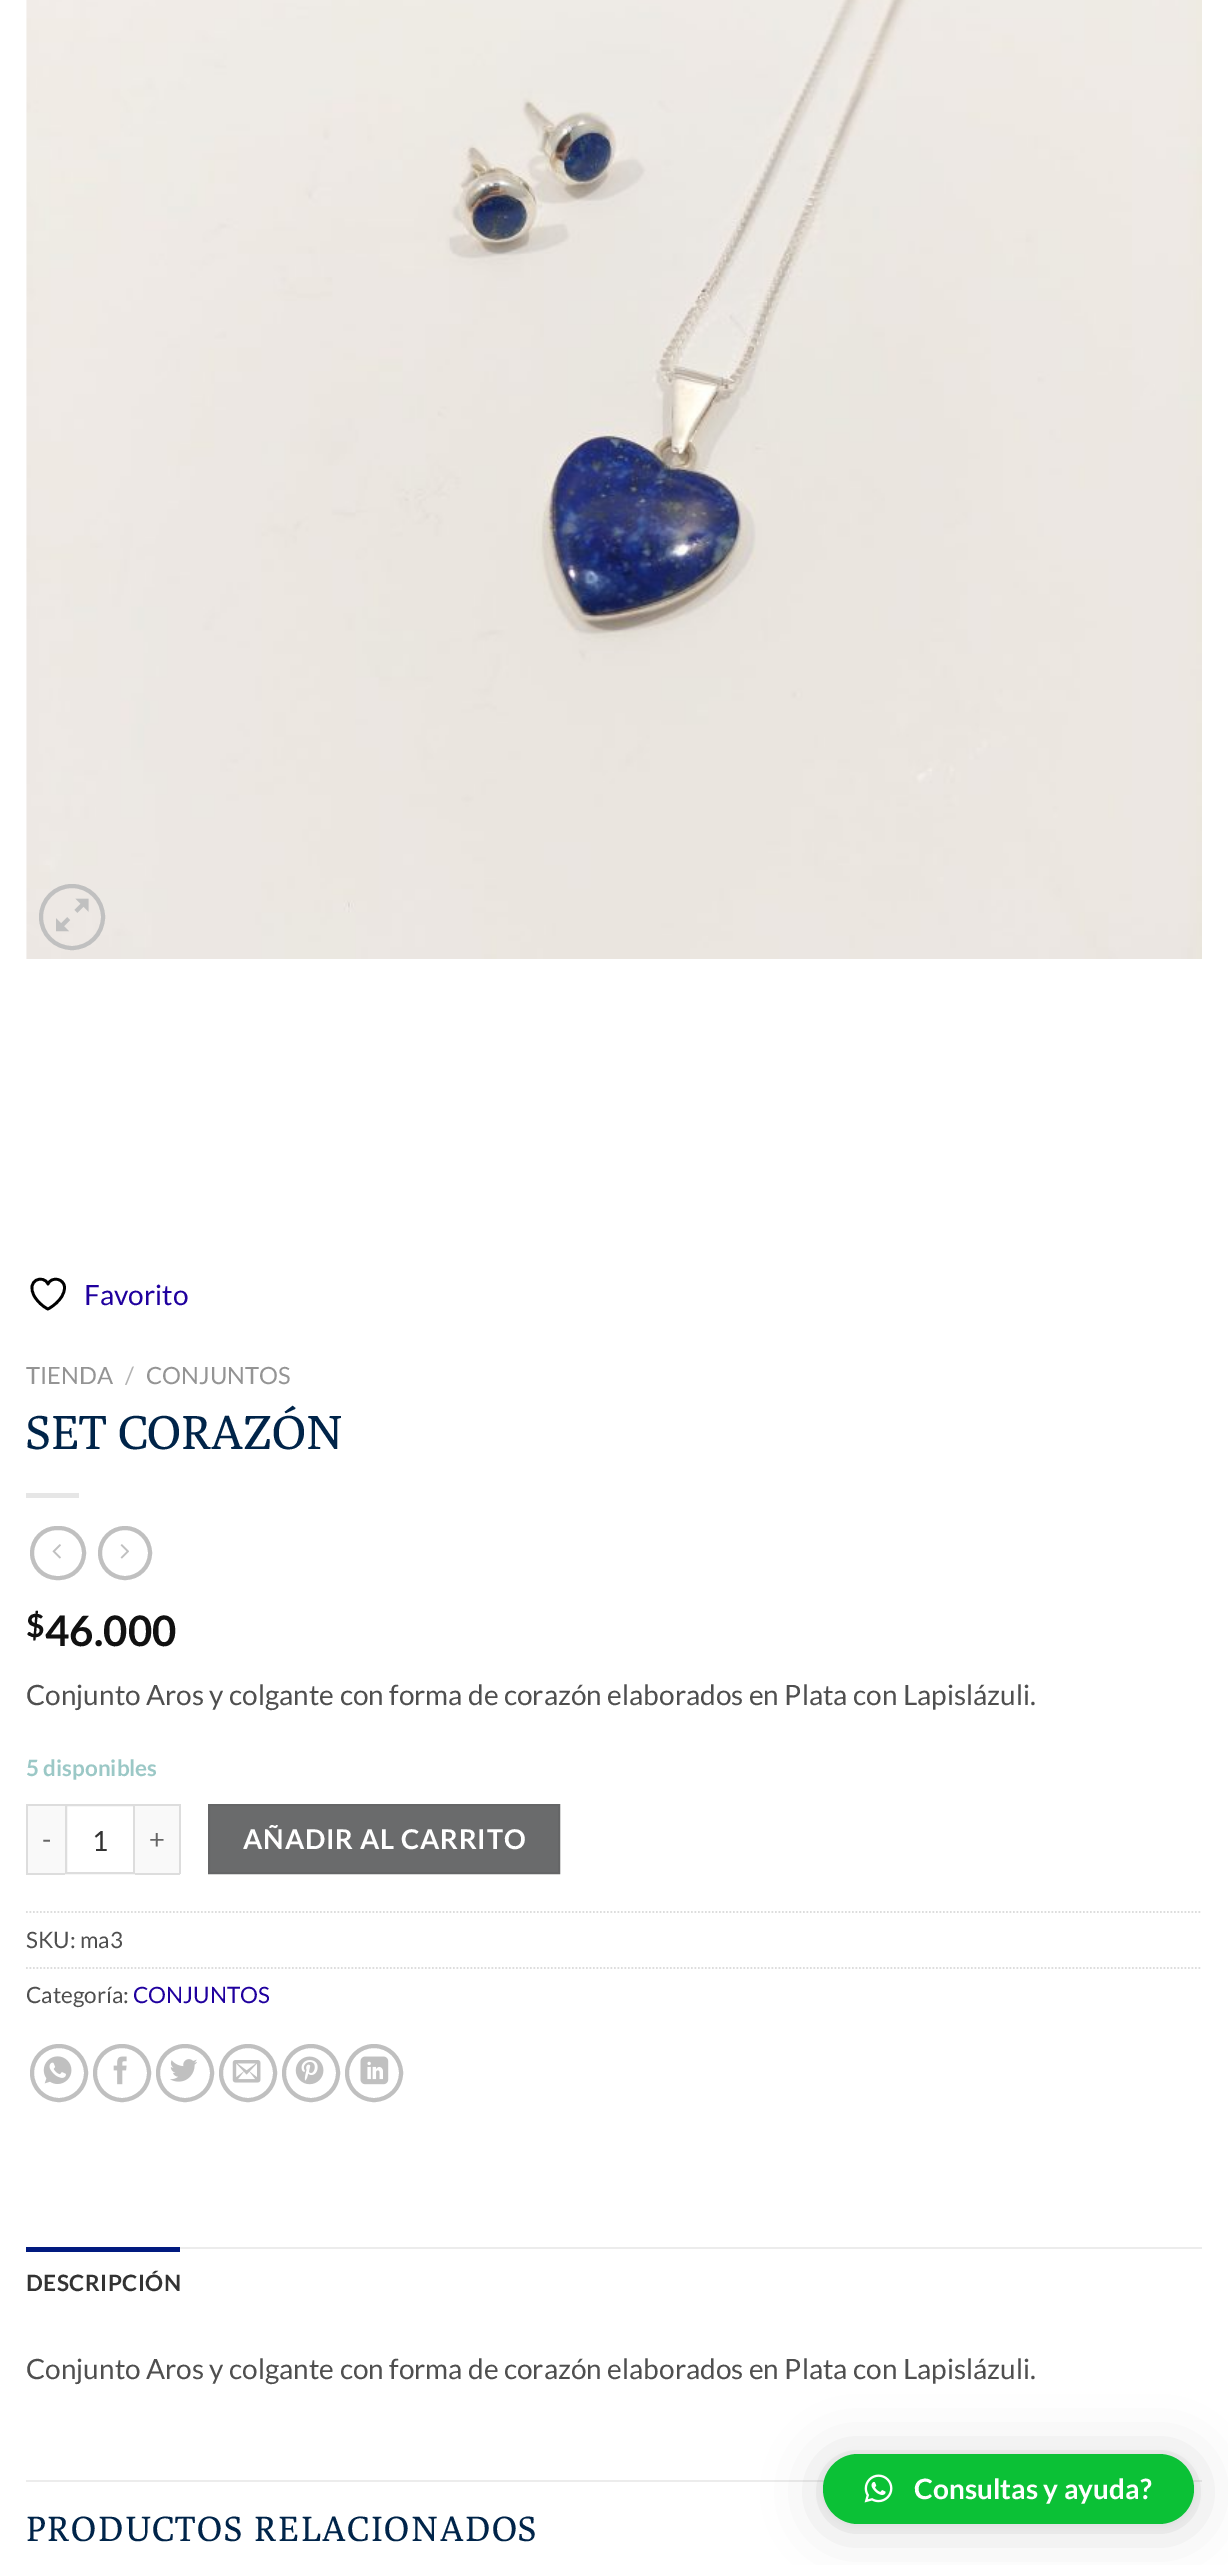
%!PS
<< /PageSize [1228 2565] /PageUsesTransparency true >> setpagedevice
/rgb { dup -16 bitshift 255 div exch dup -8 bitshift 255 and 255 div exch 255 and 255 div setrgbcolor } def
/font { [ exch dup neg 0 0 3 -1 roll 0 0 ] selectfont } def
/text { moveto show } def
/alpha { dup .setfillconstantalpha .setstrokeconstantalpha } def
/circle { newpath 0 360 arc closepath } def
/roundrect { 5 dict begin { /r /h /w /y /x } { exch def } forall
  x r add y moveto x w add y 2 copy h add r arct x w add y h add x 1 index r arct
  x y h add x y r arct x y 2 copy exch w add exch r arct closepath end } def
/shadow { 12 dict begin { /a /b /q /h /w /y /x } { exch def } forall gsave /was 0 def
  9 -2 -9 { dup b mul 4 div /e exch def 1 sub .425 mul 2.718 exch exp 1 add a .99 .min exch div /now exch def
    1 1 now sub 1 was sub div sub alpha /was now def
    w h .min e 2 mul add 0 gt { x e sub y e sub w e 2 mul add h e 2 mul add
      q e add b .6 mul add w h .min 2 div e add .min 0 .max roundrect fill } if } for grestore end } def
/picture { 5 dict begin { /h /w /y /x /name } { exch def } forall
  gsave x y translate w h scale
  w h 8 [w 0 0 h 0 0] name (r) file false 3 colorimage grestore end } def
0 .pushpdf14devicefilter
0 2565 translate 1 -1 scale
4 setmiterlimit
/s1 { /Lato-Regular 28 font 16#1F009E rgb } def
/s2 { /Lato-Regular 23.75 font 16#949494 rgb } def
/s3 { /Lato-Regular 23.75 font 16#B2B2B2 rgb } def
/s4 { /Poly-Regular 47.5 font 16#002449 rgb } def
/s5 { /Lato-Bold 32 font 16#111111 rgb } def
/s6 { /Lato-Bold 42 font 16#111111 rgb } def
/s7 { /Lato-Regular 28 font 16#4F4F4F rgb } def
/s8 { /Lato-Bold 22.5 font 16#9BC8C6 rgb } def
/s9 { /Lato-Regular 28 font 16#333333 rgb } def
/s10 { /Lato-Regular 22.5 font 16#4F4F4F rgb } def
/s11 { /Lato-Regular 22.5 font 16#1F009E rgb } def
/s12 { /Lato-Bold 28 font 16#FFFFFF rgb } def
16#FFFFFF rgb
0 0 1228 2565 rectfill
(pic1.raw) 26 0 1176 959 picture
16#C0C0C0 rgb
4 setlinewidth
72 917 31 circle stroke
(pic2.raw) 56 898 33 34 picture
s1
(Favorito) 84 1305 text
16#000000 rgb
2.7 setlinewidth
1 setlinecap
1 setlinejoin
64.5 1287.5 moveto 64.5 1278.5 51.5 1276 48 1284 curveto 43.5 1274 25 1280 34.5 1296.5 curveto 37.5 1301.5 42.5 1306.5 48 1309 curveto 48 1309 64.5 1300.5 64.5 1287.5 curveto closepath stroke
s2
(TIENDA) 26 1384 text
s3
(/) 125 1384 text
s2
(CONJUNTOS) 146 1384 text
s4
(SET CORAZÓN) 26 1449 text
16#E6E6E6 rgb
26 1493 53 5 rectfill
16#C0C0C0 rgb
4 setlinewidth
0 setlinecap
0 setlinejoin
32 1528 52 50 25 roundrect stroke
(pic3.raw) 52 1544 9 15 picture
125 1553 25 circle stroke
(pic4.raw) 120 1544 9 15 picture
s5
($) 26 1637 text
s6
(46.000) 45 1646 text
s7
(Conjunto Aros y colgante con forma de corazón elaborados en Plata con Lapislázuli.) 26 1705 text
s8
(5 disponibles) 26 1776 text
16#F9F9F9 rgb
28 1806 37 67 rectfill
16#DDDDDD rgb
26 1804 39 2 rectfill
26 1873 39 2 rectfill
26 1804 2 70 rectfill
/Lato-Regular 27.25 font
16#666666 rgb
42 1849 moveto 0.8 0 (-) ashow
16#DDDDDD rgb
2 setlinewidth
66 1805 68 68 rectstroke
s9
(1) 92 1851 text
16#F9F9F9 rgb
135 1806 44 67 rectfill
16#DDDDDD rgb
135 1804 45 2 rectfill
179 1804 2 70 rectfill
135 1873 45 2 rectfill
/Lato-Regular 27.25 font
16#666666 rgb
149 1849 moveto 0.8 0 (+) ashow
16#6A6B6C rgb
209 1805 moveto 559 1805 lineto 559 1873 lineto 209 1873 lineto closepath gsave fill grestore
16#656667 rgb
stroke
/Lato-Bold 27.25 font
16#FFFFFF rgb
243 1849 moveto 0.8 0 (AÑADIR AL CARRITO) ashow
16#DDDDDD rgb
1.8 setlinewidth
[1.75 1.75] 0 setdash
26 1912 moveto 1202 1912 lineto stroke
s10
(SKU: ma3) 26 1948 text
16#DDDDDD rgb
26 1968 moveto 1202 1968 lineto stroke
s10
(Categoría:) 26 2003 text
s11
(CONJUNTOS) 133 2003 text
16#C0C0C0 rgb
4 setlinewidth
[] 0 setdash
59 2073 27 circle stroke
(pic5.raw) 43 2056 29 28 picture
122 2073 27 circle stroke
(pic6.raw) 113 2056 14 29 picture
185 2073 27 circle stroke
(pic7.raw) 170 2059 27 23 picture
248 2073 27 circle stroke
(pic8.raw) 232 2060 29 23 picture
311 2073 27 circle stroke
(pic9.raw) 295 2056 29 29 picture
374 2073 27 circle stroke
(pic10.raw) 360 2056 29 29 picture
16#ECECEC rgb
180 2247 1022 2 rectfill
16#011A7F rgb
26 2247 154 5 rectfill
/Lato-Bold 22.5 font
16#333333 rgb
26 2291 moveto 0.5 0 (DESCRIPCIÓN) ashow
s7
(Conjunto Aros y colgante con forma de corazón elaborados en Plata con Lapislázuli.) 26 2379 text
16#ECECEC rgb
26 2480 1176 2 rectfill
/Poly-Regular 35 font
16#002449 rgb
26 2541 moveto 1.75 0 (PRODUCTOS RELACIONADOS) ashow
16#000000 rgb
823 2457 371 70 35 28 0.16 shadow
823 2455 371 70 35 5 0.06 shadow
16#0BC136 rgb
823 2454 371 70 35 roundrect fill
(pic11.raw) 864 2474 29 29 picture
s12
(Consultas y ayuda?) 914 2499 text
.poppdf14devicefilter showpage
